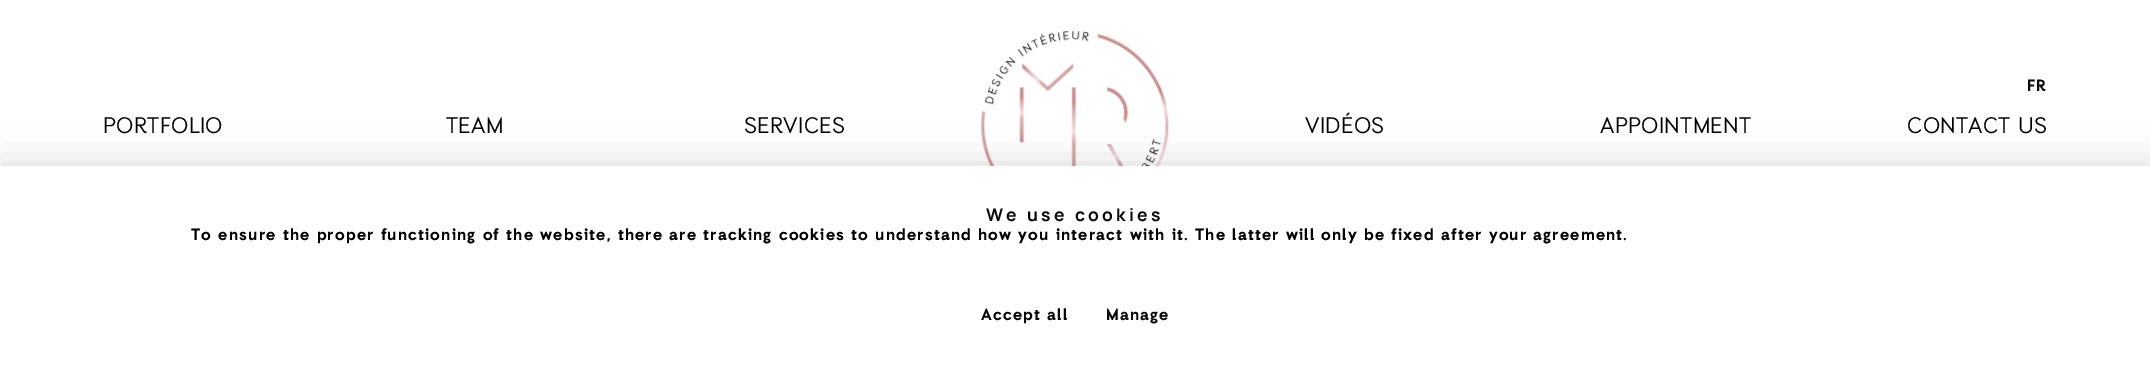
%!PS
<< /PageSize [2150 365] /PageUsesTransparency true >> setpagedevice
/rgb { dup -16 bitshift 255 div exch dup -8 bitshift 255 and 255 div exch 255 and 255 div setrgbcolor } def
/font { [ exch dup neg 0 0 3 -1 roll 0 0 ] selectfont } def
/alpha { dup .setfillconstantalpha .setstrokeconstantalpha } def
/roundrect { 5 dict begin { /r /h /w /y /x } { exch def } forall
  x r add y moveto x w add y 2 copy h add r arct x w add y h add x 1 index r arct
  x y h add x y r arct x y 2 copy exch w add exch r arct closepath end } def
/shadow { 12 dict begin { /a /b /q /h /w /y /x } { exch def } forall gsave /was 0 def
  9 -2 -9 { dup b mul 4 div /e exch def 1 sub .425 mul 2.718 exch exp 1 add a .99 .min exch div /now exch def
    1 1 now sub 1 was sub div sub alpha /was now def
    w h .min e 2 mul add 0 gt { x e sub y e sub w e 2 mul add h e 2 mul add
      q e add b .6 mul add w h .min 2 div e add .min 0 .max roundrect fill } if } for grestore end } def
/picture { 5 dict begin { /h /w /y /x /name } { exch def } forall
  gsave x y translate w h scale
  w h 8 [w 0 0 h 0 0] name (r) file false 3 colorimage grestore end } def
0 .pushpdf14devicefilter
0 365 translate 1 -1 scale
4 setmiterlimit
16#FFFFFF rgb
0 0 2150 365 rectfill
/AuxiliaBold-Bold 16.25 font
16#080808 rgb
2027 91 moveto 1.14 0 (FR) ashow
/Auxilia-Regular 22.5 font
16#000000 rgb
103 133 moveto 0.25 0 (PORTFOLIO) ashow
446 133 moveto 0.25 0 (TEAM) ashow
744 133 moveto 0.25 0 (SERVICES) ashow
(pic1.raw) 981 31 188 135 picture
1305 133 moveto 0.25 0 (VIDÉOS) ashow
1600 133 moveto 0.25 0 (APPOINTMENT) ashow
1907 133 moveto 0.25 0 (CONTACT US) ashow
0 166 2150 199 0 19 0.15 shadow
16#FFFFFF rgb
0 166 2150 199 rectfill
/Manrope-Bold 17.5 font
16#080808 rgb
986 221 moveto 3.3 0 (We use cookies) ashow
/AuxiliaBold-Bold 16.25 font
16#000000 rgb
191 240 moveto 1.14 0 (To ensure the proper functioning of the website, there are tracking cookies to understand how you interact with it. The latter will only be fixed after your agreement.) ashow
16#080808 rgb
981 320 moveto 1.14 0 (Accept all) ashow
1106 320 moveto 1.14 0 (Manage) ashow
.poppdf14devicefilter showpage
